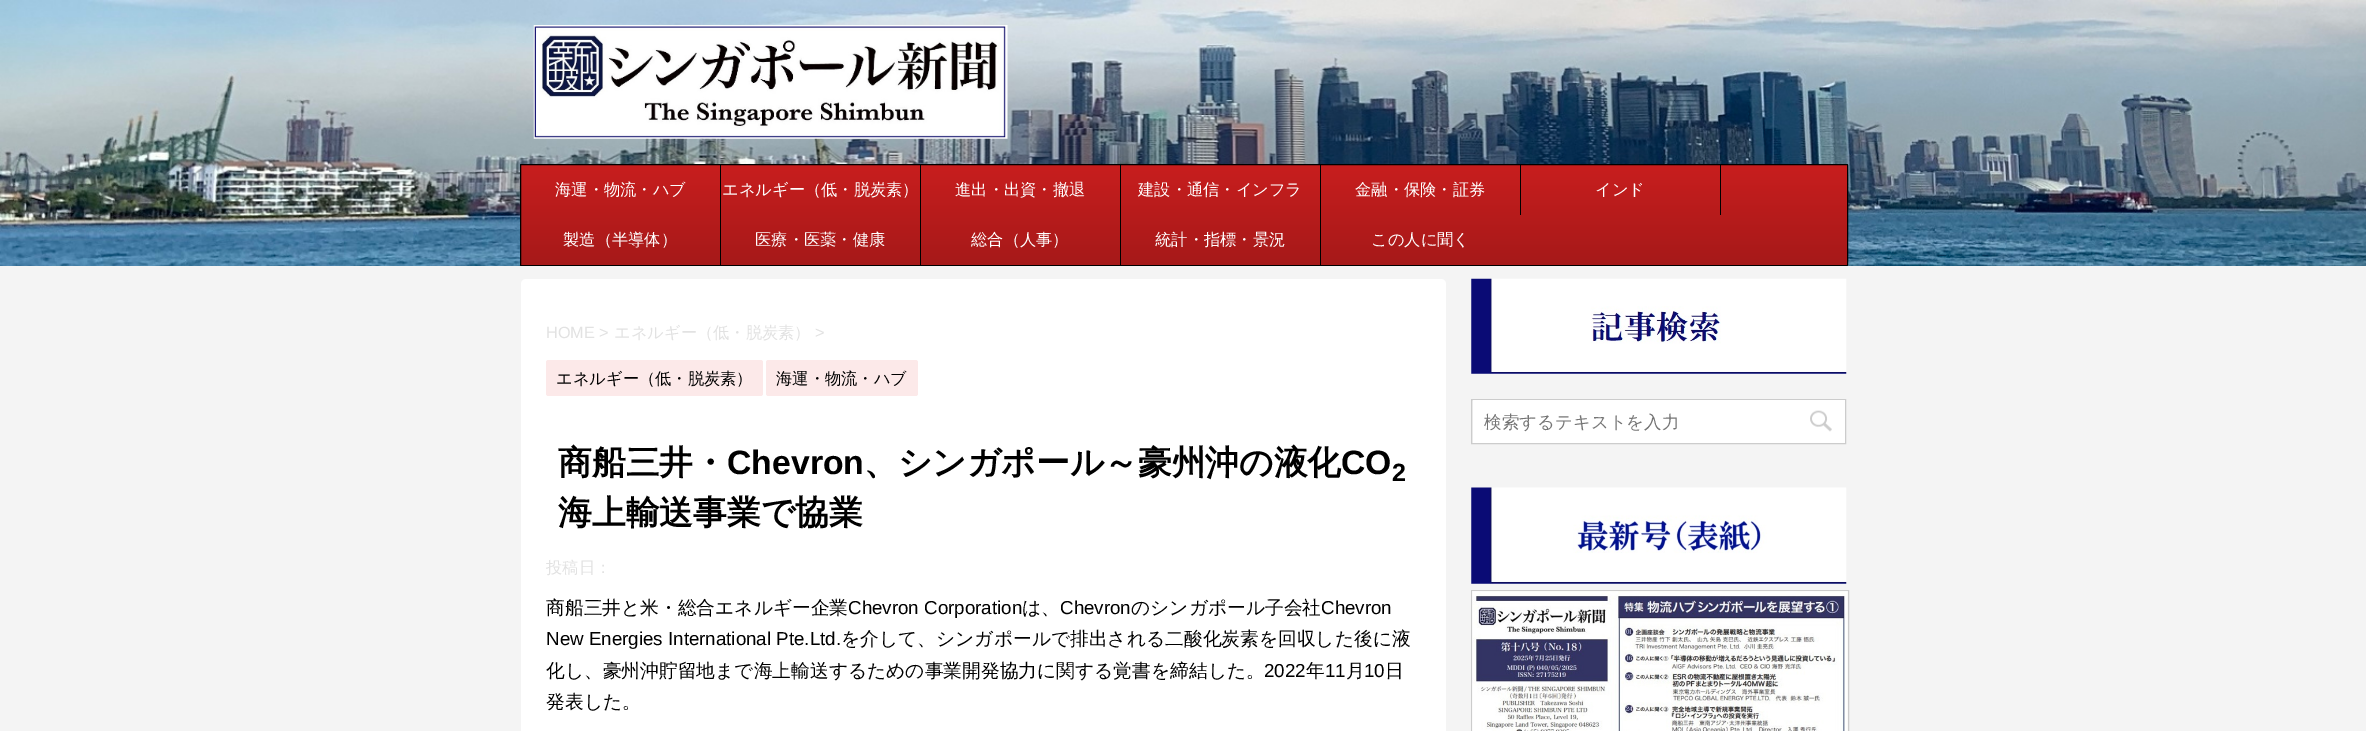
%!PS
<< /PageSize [2366 731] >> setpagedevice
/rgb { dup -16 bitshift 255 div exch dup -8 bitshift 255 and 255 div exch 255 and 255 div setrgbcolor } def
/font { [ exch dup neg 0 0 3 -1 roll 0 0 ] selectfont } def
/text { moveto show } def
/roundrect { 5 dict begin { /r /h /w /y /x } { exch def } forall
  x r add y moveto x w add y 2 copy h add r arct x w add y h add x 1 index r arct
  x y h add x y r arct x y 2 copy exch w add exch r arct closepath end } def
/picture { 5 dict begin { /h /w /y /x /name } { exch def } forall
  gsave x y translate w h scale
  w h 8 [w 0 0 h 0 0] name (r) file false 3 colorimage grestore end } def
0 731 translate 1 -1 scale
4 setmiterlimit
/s1 { /WenQuanYiZenHei-Medium 16.25 font 16#FFFFFF rgb } def
/s2 { /LiberationSans-Regular 16.25 font 16#E2E2E2 rgb } def
/s3 { /WenQuanYiZenHei-Medium 16.25 font 16#E2E2E2 rgb } def
/s4 { /WenQuanYiZenHei-Medium 16.25 font 16#000000 rgb } def
/s5 { /WenQuanYiZenHei-Bold 33.75 font 16#000000 rgb } def
/s6 { /LiberationSans-Bold 33.75 font 16#000000 rgb } def
/s7 { /LiberationSans-Bold 25 font 16#000000 rgb } def
/s8 { /WenQuanYiZenHei-Medium 18.75 font 16#000000 rgb } def
/s9 { /LiberationSans-Regular 18.75 font 16#000000 rgb } def
/s10 { /WenQuanYiZenHei-Medium 17.5 font 16#757575 rgb } def
16#FFFFFF rgb
0 0 2366 731 rectfill
(pic1.raw) 0 0 2366 266 picture
(pic2.raw) 533 25 475 114 picture
gsave 521 165 moveto 1847 165 lineto 1847 265 lineto 521 265 lineto closepath clip newpath
<< /ShadingType 2 /ColorSpace /DeviceRGB /Coords [1184 165 1184 265] /Extend [true true] /Function << /FunctionType 2 /Domain [0 1] /C0 [0.784 0.118 0.118] /C1 [0.651 0.098 0.098] /N 1 >> >> shfill grestore
16#000000 rgb
520.5 164.5 1327 101 0.5 roundrect stroke
720 165 1 100 rectfill
s1
(海運・物流・ハブ) 555 195 text
16#000000 rgb
920 165 1 100 rectfill
s1
(エネルギー（低・脱炭素）) 722 195 text
16#000000 rgb
1120 165 1 100 rectfill
s1
(進出・出資・撤退) 955 195 text
16#000000 rgb
1320 165 1 100 rectfill
s1
(建設・通信・インフラ) 1138 195 text
16#000000 rgb
1520 165 1 50 rectfill
s1
(金融・保険・証券) 1355 195 text
16#000000 rgb
1720 165 1 50 rectfill
s1
(インド) 1595 195 text
(製造（半導体）) 563 245 text
(医療・医薬・健康) 755 245 text
(総合（人事）) 971 245 text
(統計・指標・景況) 1155 245 text
(この人に聞く) 1371 245 text
16#F4F4F4 rgb
0 266 2366 465 rectfill
16#FFFFFF rgb
521 279 925 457 5 roundrect fill
s2
(HOME >) 546 338 text
s3
(エネルギー（低・脱炭素）) 614 338 text
s2
(>) 815 338 text
16#FCE9E9 rgb
546 360 217 36 2.5 roundrect fill
s4
(エネルギー（低・脱炭素）) 556 384 text
16#FCE9E9 rgb
766 360 152 36 2.5 roundrect fill
s4
(海運・物流・ハブ) 776 384 text
s5
(商船三井・) 558 474 text
s6
(Chevron) 727 474 text
s5
(、シンガポール～豪州沖の液化) 864 474 text
s6
(CO) 1341 474 text
s7
(2) 1392 481 text
s5
(海上輸送事業で協業) 558 524 text
s3
(投稿日：) 546 573 text
s8
(商船三井と米・総合エネルギー企業) 546 614 text
s9
(Chevron Corporation) 848 614 text
s8
(は、) 1022 614 text
s9
(Chevron) 1060 614 text
s8
(のシンガポール子会社) 1131 614 text
s9
(Chevron) 1321 614 text
(New Energies International Pte.Ltd.) 546 645 text
s8
(を介して、シンガポールで排出される二酸化炭素を回収した後に液) 841 645 text
(化し、豪州沖貯留地まで海上輸送するための事業開発協力に関する覚書を締結した。) 546 677 text
s9
(2022) 1264 677 text
s8
(年) 1306 677 text
s9
(11) 1325 677 text
s8
(月) 1346 677 text
s9
(10) 1364 677 text
s8
(日) 1385 677 text
(発表した。) 546 708 text
(pic3.raw) 1471 278 376 96 picture
16#CCCCCC rgb
1471.5 399.5 374 44 rectstroke
16#FFFFFF rgb
1473 400 372 43 rectfill
s10
(検索するテキストを入力) 1484 428 text
(pic4.raw) 1810 410 22 22 picture
(pic5.raw) 1471 487 376 97 picture
16#CCCCCC rgb
1471.5 590.5 377 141 rectstroke
(pic6.raw) 1472 591 376 140 picture
showpage
